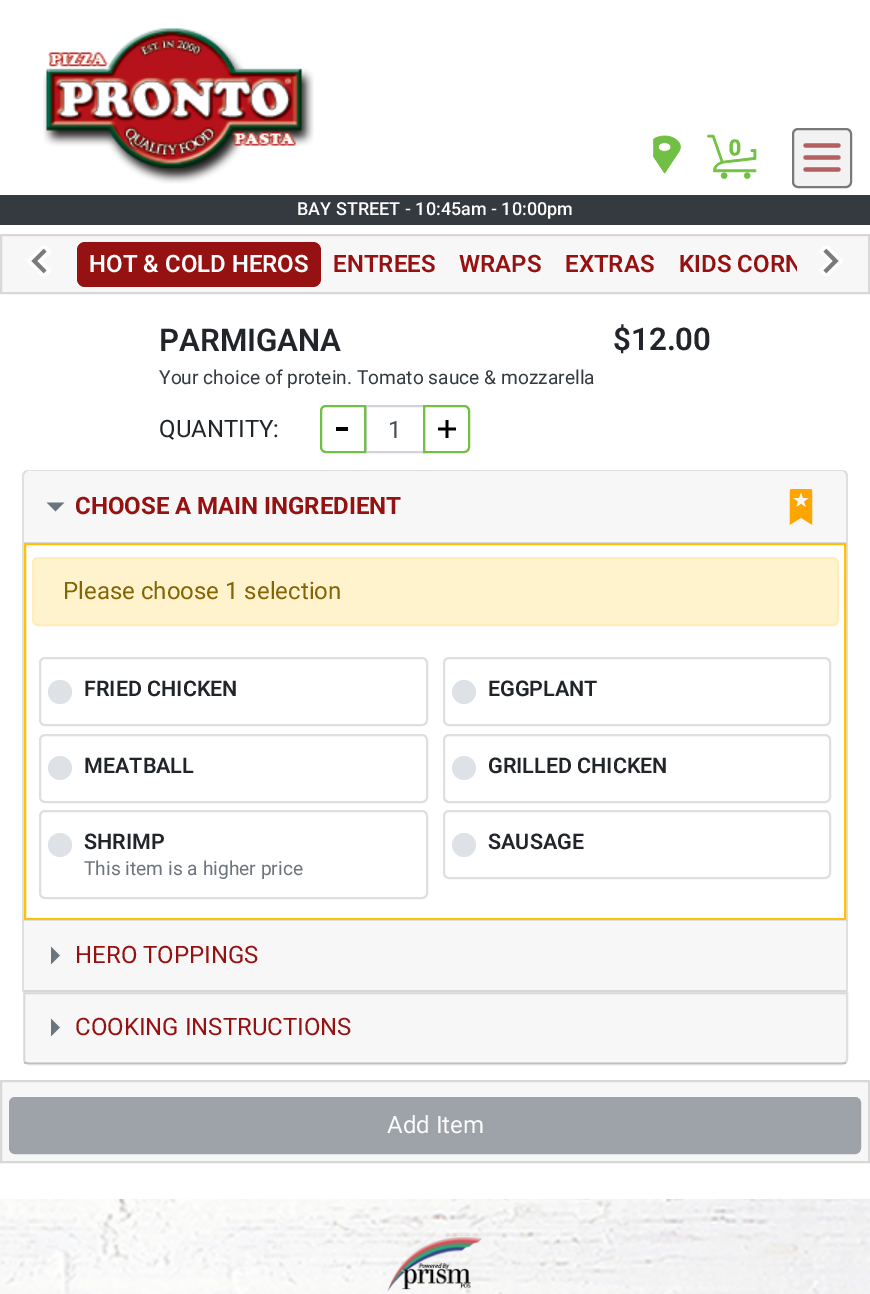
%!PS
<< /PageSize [870 1294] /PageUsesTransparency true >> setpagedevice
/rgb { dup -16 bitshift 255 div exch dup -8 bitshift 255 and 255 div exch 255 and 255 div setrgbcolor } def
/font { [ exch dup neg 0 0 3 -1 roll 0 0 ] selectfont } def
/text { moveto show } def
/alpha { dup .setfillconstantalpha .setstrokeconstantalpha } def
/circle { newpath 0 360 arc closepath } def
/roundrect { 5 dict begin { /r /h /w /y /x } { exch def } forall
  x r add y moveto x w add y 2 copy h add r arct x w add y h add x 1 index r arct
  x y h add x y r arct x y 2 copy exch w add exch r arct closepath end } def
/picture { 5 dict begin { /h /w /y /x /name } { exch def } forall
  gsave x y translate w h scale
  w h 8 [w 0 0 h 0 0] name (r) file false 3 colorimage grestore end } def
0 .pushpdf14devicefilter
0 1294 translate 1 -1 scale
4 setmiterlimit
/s1 { /Roboto-Medium 18 font 16#FCFCFC rgb } def
/s2 { /Roboto-SemiBold 24 font 16#FCFCFC rgb } def
/s3 { /Roboto-SemiBold 24 font 16#961212 rgb } def
/s4 { /Roboto-SemiBold 31.25 font 16#212529 rgb } def
/s5 { /Roboto-Regular 19.2 font 16#343A40 rgb } def
/s6 { /Roboto-Regular 24 font 16#212529 rgb } def
/s7 { /Roboto-Regular 24 font 16#495057 rgb } def
/s8 { /Roboto-Bold 24 font 16#961212 rgb } def
/s9 { /Roboto-Regular 24 font 16#856404 rgb } def
/s10 { /Roboto-SemiBold 21.5 font 16#212529 rgb } def
/s11 { /Roboto-Regular 19.2 font 16#6C757D rgb } def
/s12 { /Roboto-Regular 24 font 16#961212 rgb } def
/s13 { /Roboto-Regular 24 font 16#FCFCFC rgb } def
16#FFFFFF rgb
0 0 870 1294 rectfill
(pic1.raw) 0 1199 870 95 picture
(pic2.raw) 43 28 271 156 picture
(pic3.raw) 653 135 28 39 picture
(pic4.raw) 707 134 50 45 picture
16#F2F2F2 rgb
792 128 60 60 6 roundrect fill
0.5 alpha
16#000000 rgb
2 setlinewidth
793 129 58 58 5 roundrect stroke
1 alpha
(pic5.raw) 803 143 38 29 picture
16#343A40 rgb
0 195 870 30 rectfill
s1
(BAY STREET - 10:45am - 10:00pm) 297 215 text
16#F7F7F7 rgb
1 235 moveto 869 235 lineto 869 293 lineto 1 293 lineto closepath gsave fill grestore
16#D8D8D8 rgb
stroke
(pic6.raw) 27 246 25 30 picture
16#961212 rgb
77 242 244 45 8 roundrect fill
s2
(HOT & COLD HEROS) 89 272 text
s3
(ENTREES) 333 272 text
(WRAPS) 459 272 text
(EXTRAS) 565 272 text
gsave
74 242 723 48 rectclip
(KIDS CORN) 679 272 text
grestore
(pic7.raw) 818 246 25 30 picture
s4
(PARMIGANA) 159 351 text
($12.00) 613 350 text
s5
(Your choice of protein. Tomato sauce & mozzarella) 159 384 text
s6
(QUANTITY:) 159 437 text
16#CED4DA rgb
366 406 58 46 rectstroke
16#71BF44 rgb
326 406 moveto 365 406 lineto 365 452 lineto 326 452 lineto 323 452 321 450 321 447 curveto 321 411 lineto 321 408 323 406 326 406 curveto closepath stroke
16#000000 rgb
336 427 12 4 rectfill
s7
(1) 388 438 text
16#71BF44 rgb
424 406 moveto 464 406 lineto 467 406 469 408 469 411 curveto 469 447 lineto 469 450 467 452 464 452 curveto 424 452 lineto closepath stroke
(pic8.raw) 438 420 18 18 picture
16#DFDFDF rgb
28 470 moveto 842 470 lineto 845 470 848 472 848 476 curveto 848 920 lineto 22 920 lineto 22 476 lineto 22 472 25 470 28 470 curveto closepath 28 471 moveto 842 471 lineto 844 471 846 473 846 476 curveto 846 920 lineto 24 920 lineto 24 476 lineto 24 473 26 471 28 471 curveto closepath eofill
0.03 alpha
16#000000 rgb
24 471 822 72 rectfill
0.12 alpha
24 542 822 1 rectfill
1 alpha
(pic9.raw) 46 502 19 10 picture
s8
(CHOOSE A MAIN INGREDIENT) 75 514 text
(pic10.raw) 789 489 24 36 picture
16#FFC107 rgb
25 544 820 375 rectstroke
16#FFF3CD rgb
33 558 805 67 5 roundrect gsave fill grestore
16#FFEEBA rgb
stroke
s9
(Please choose 1 selection) 63 599 text
16#DFDFDF rgb
40 658 387 67 5 roundrect stroke
16#DEE2E6 rgb
60 692 12 circle fill
s10
(FRIED CHICKEN) 84 696 text
16#DFDFDF rgb
40 735 387 67 5 roundrect stroke
16#DEE2E6 rgb
60 768 12 circle fill
s10
(MEATBALL) 84 773 text
16#DFDFDF rgb
40 811 387 87 5 roundrect stroke
16#DEE2E6 rgb
60 845 12 circle fill
s10
(SHRIMP) 84 849 text
s11
(This item is a higher price) 84 875 text
16#DFDFDF rgb
444 658 386 67 5 roundrect stroke
16#DEE2E6 rgb
464 692 12 circle fill
s10
(EGGPLANT) 488 696 text
16#DFDFDF rgb
444 735 386 67 5 roundrect stroke
16#DEE2E6 rgb
464 768 12 circle fill
s10
(GRILLED CHICKEN) 488 773 text
16#DFDFDF rgb
444 811 386 67 5 roundrect stroke
16#DEE2E6 rgb
464 845 12 circle fill
s10
(SAUSAGE) 488 849 text
16#DFDFDF rgb
22 920 moveto 848 920 lineto 846 921 lineto 24 921 lineto closepath fill
0.12 alpha
16#000000 rgb
848 920 moveto 848 992 lineto 846 992 lineto 846 921 lineto closepath fill
22 992 moveto 22 920 lineto 24 921 lineto 24 992 lineto closepath fill
1 alpha
16#F7F7F7 rgb
24 921 822 69 rectfill
16#D8D8D8 rgb
24 990 822 2 rectfill
(pic11.raw) 51 946 9 19 picture
s12
(HERO TOPPINGS) 75 963 text
16#DFDFDF rgb
24 993 moveto 847 993 lineto 847 1059 lineto 847 1062 845 1064 842 1064 curveto 29 1064 lineto 26 1064 24 1062 24 1059 curveto closepath stroke
0.03 alpha
16#000000 rgb
24 993 822 71 rectfill
0.12 alpha
24 1062 822 2 rectfill
1 alpha
(pic11.raw) 51 1018 9 19 picture
s12
(COOKING INSTRUCTIONS) 75 1035 text
16#F7F7F7 rgb
1 1081 moveto 869 1081 lineto 869 1162 lineto 1 1162 lineto closepath gsave fill grestore
16#D8D8D8 rgb
stroke
16#9DA3A8 rgb
10 1098 850 55 5 roundrect gsave fill grestore
stroke
s13
(Add Item) 387 1133 text
(pic12.raw) 387 1236 95 56 picture
.poppdf14devicefilter showpage
